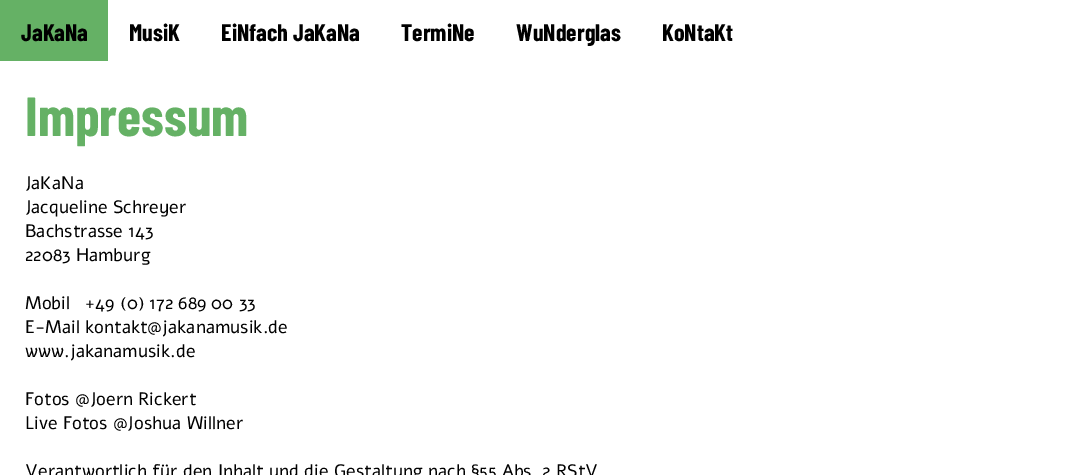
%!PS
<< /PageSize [1071 475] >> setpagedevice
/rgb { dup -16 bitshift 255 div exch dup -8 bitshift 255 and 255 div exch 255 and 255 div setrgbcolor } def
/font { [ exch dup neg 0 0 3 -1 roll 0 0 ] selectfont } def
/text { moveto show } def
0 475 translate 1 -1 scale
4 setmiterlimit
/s1 { /BarlowCondensed-Bold 24 font 16#000000 rgb } def
/s2 { /BarlowCondensed-Bold 55 font 16#65B165 rgb } def
/s3 { /Alef-Regular 18 font 16#000000 rgb } def
16#FFFFFF rgb
0 0 1071 475 rectfill
16#65B165 rgb
0 0 108 61 rectfill
s1
(JaKaNa) 21 41 text
(MusiK) 129 41 text
(EiNfach JaKaNa) 221 41 text
(TermiNe) 401 41 text
(WuNderglas) 516 41 text
(KoNtaKt) 662 41 text
s2
(Impressum) 25 136 text
s3
(JaKaNa) 25 189 text
(Jacqueline Schreyer) 25 213 text
(Bachstrasse 143) 25 237 text
(22083 Hamburg) 25 261 text
(Mobil   +49 \(0\) 172 689 00 33) 25 309 text
(E-Mail kontakt@jakanamusik.de) 25 333 text
(www.jakanamusik.de) 25 357 text
(Fotos @Joern Rickert) 25 405 text
(Live Fotos @Joshua Willner) 25 429 text
(Verantwortlich für den Inhalt und die Gestaltung nach §55 Abs. 2 RStV) 25 477 text
showpage
